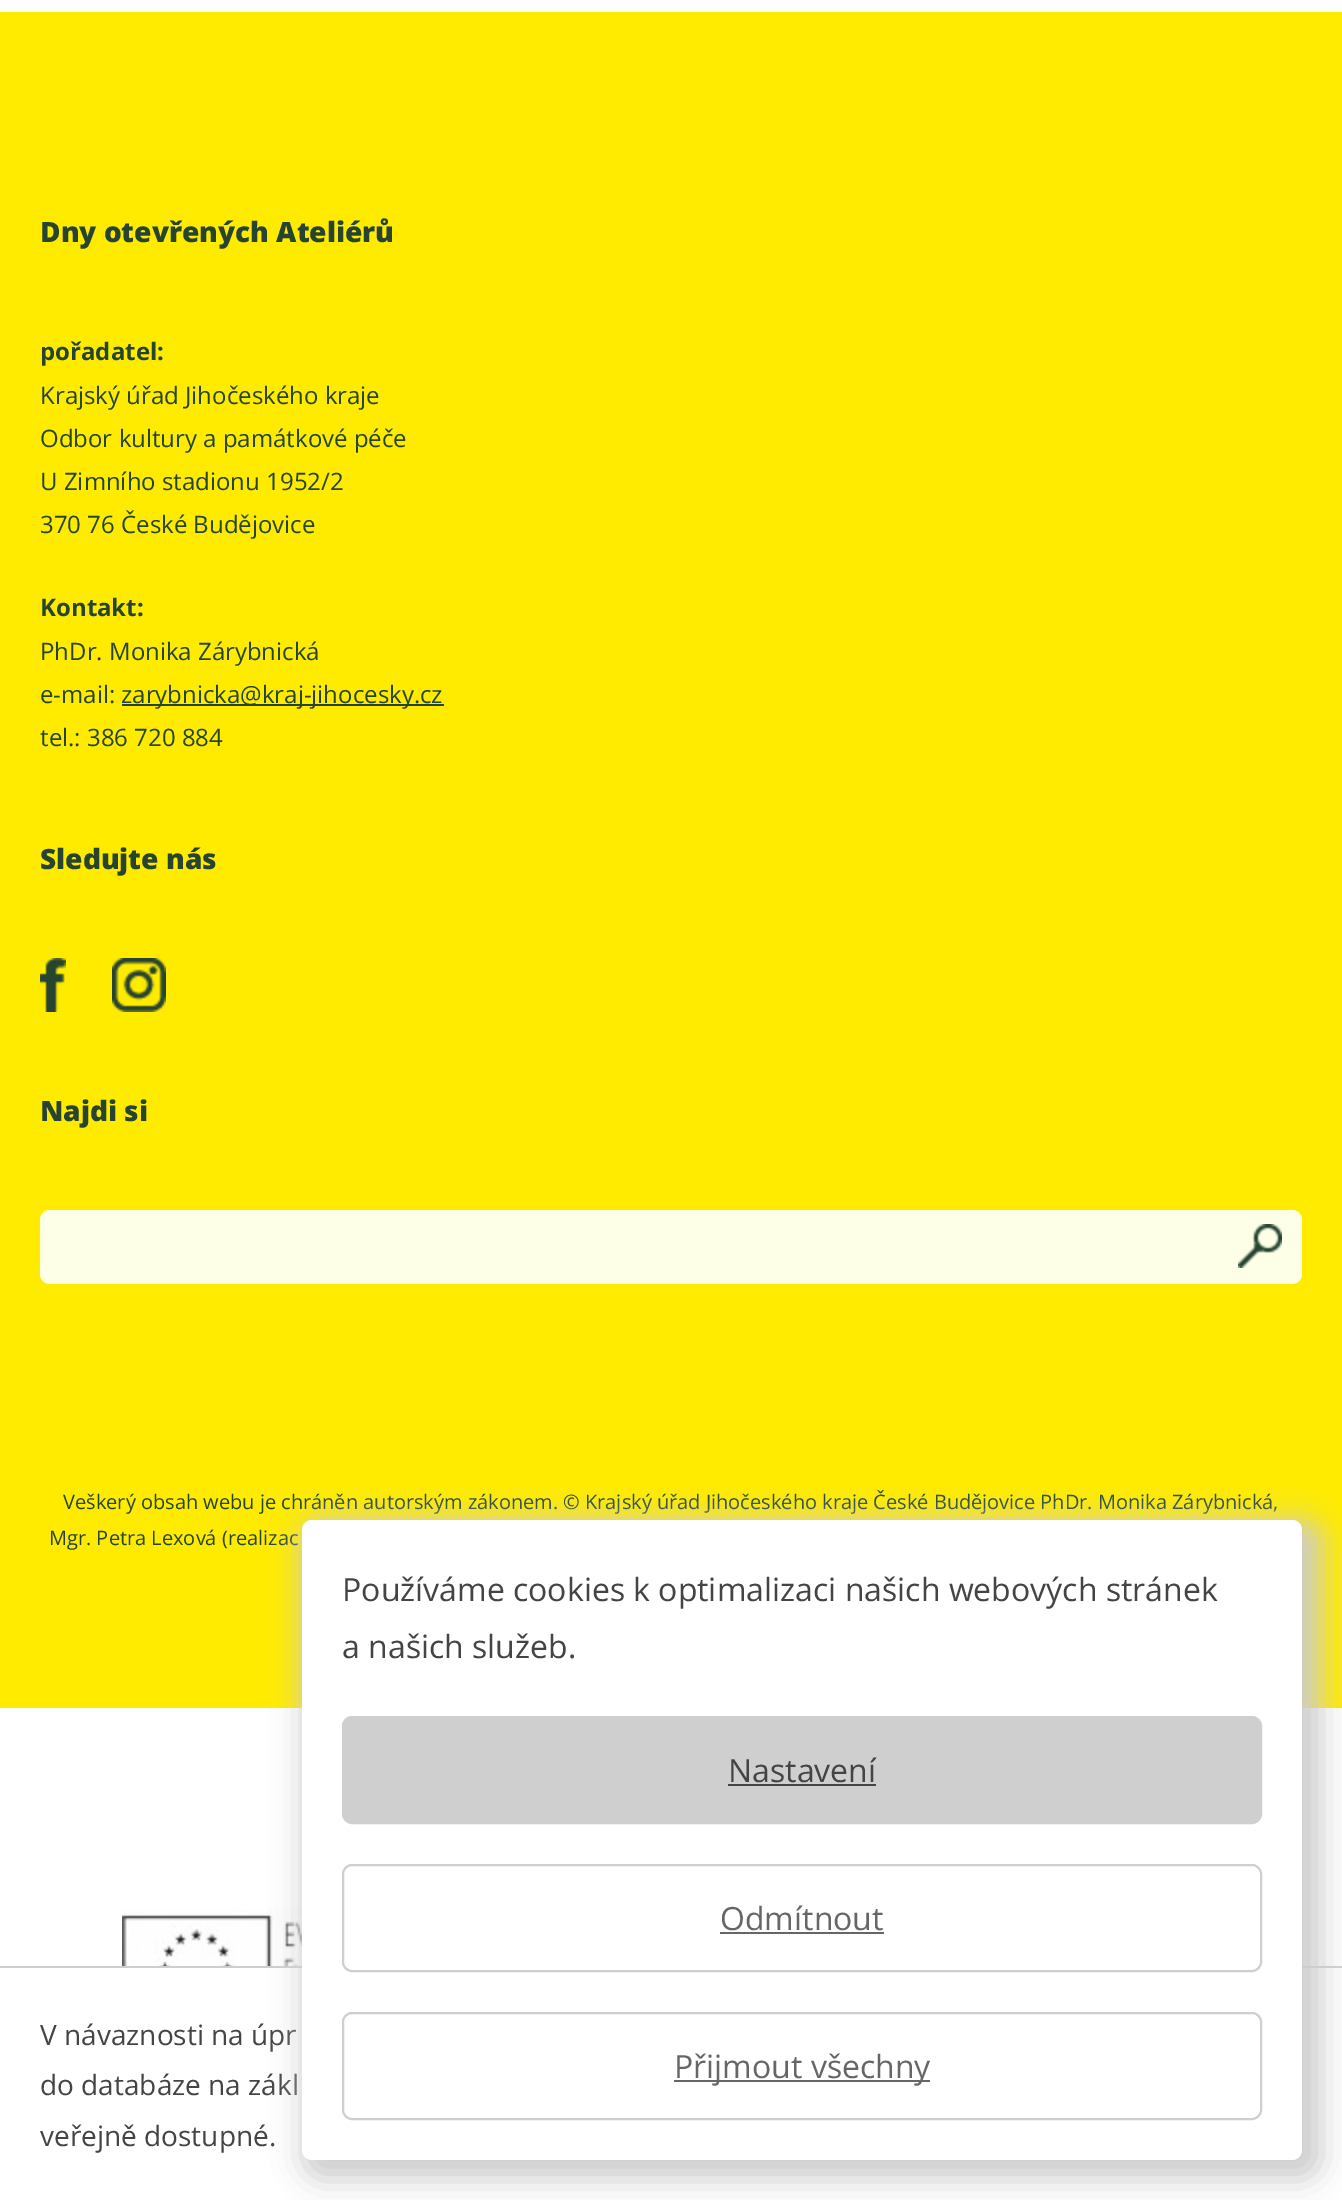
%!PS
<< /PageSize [1342 2200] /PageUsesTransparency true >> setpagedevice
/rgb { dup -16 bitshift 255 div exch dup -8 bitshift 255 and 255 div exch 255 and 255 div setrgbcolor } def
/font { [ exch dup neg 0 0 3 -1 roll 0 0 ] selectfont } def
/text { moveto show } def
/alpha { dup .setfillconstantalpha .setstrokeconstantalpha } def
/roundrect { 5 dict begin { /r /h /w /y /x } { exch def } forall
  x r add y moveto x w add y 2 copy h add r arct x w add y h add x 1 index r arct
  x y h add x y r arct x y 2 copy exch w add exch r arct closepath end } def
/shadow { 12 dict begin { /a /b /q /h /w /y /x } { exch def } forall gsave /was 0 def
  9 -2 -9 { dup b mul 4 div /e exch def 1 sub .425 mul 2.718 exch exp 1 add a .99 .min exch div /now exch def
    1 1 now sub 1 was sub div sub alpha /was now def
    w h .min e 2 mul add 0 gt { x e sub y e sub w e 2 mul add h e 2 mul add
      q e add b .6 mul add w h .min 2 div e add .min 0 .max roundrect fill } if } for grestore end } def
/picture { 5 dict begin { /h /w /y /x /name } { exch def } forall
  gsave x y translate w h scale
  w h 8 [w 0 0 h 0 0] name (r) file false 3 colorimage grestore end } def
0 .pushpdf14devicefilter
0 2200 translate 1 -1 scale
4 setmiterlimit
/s1 { /OpenSans-ExtraBold 28 font 16#264430 rgb } def
/s2 { /OpenSans-Bold 24 font 16#264430 rgb } def
/s3 { /OpenSans-Regular 24 font 16#264430 rgb } def
/s4 { /OpenSans-Regular 20 font 16#264430 rgb } def
/s5 { /OpenSans-Regular 28 font 16#444444 rgb } def
/s6 { /OpenSans-Regular 32 font 16#444444 rgb } def
/s7 { /OpenSans-Regular 32 font 16#666666 rgb } def
16#FFFFFF rgb
0 0 1342 2200 rectfill
16#FFEB00 rgb
0 12 1342 1696 rectfill
s1
(Dny otevřených Ateliérů) 40 242 text
s2
(pořadatel:) 40 360 text
s3
(Krajský úřad Jihočeského kraje) 40 404 text
(Odbor kultury a památkové péče) 40 447 text
(U Zimního stadionu 1952/2) 40 490 text
(370 76 České Budějovice) 40 533 text
s2
(Kontakt:) 40 616 text
s3
(PhDr. Monika Zárybnická) 40 660 text
(e-mail:) 40 703 text
122 704 322 2 rectfill
(zarybnicka@kraj-jihocesky.cz) 121 703 text
(tel.: 386 720 884) 40 746 text
s1
(Sledujte nás) 40 869 text
(pic1.raw) 40 958 26 54 picture
(pic2.raw) 112 958 54 54 picture
(Najdi si) 40 1121 text
16#FDFFE7 rgb
40 1210 1262 74 10 roundrect fill
(pic3.raw) 1238 1224 44 44 picture
s4
(Veškerý obsah webu je chráněn autorským zákonem. © Krajský úřad Jihočeského kraje České Budějovice PhDr. Monika Zárybnická,) 63 1509 text
(Mgr. Petra Lexová \(realizac) 49 1545 text
(pic4.raw) 122 1908 180 58 picture
16#CECECE rgb
0 1966 1342 2 rectfill
s5
(V návaznosti na úpr) 40 2045 text
(do databáze na zákl) 40 2095 text
(veřejně dostupné.) 40 2146 text
16#CCCCCC rgb
302 1520 1020 660 20 15 1 shadow
16#FFFFFF rgb
302 1520 1000 640 10 roundrect fill
s6
(Používáme cookies k optimalizaci našich webových stránek) 342 1601 text
(a našich služeb.) 342 1658 text
16#CFCFCF rgb
343 1717 918 106 9 roundrect gsave fill grestore
2 setlinewidth
stroke
s6
(Nastavení) 728 1782 text
728 1784 148 2 rectfill
16#CFCFCF rgb
343 1865 918 106 9 roundrect stroke
s7
(Odmítnout) 720 1930 text
720 1932 164 2 rectfill
16#CFCFCF rgb
343 2013 918 106 9 roundrect stroke
16#666666 rgb
674 2080 256 2 rectfill
(Přijmout všechny) 674 2078 text
.poppdf14devicefilter showpage
